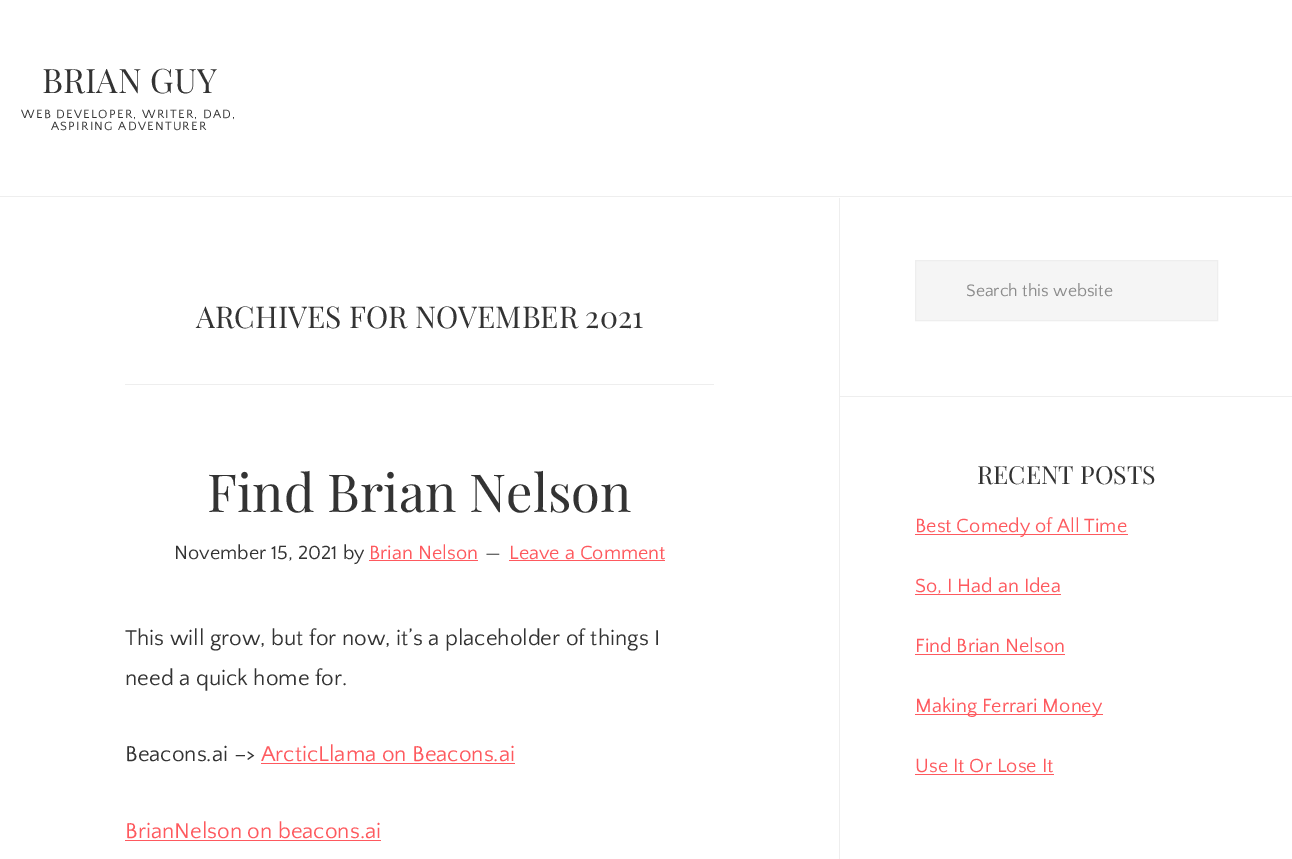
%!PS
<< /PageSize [1292 859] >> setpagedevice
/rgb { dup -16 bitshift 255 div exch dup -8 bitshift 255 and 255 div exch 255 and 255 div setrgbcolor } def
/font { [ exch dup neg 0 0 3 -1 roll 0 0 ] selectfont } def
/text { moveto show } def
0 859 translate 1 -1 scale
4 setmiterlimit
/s1 { /PlayfairDisplay-Regular 33.75 font 16#333333 rgb } def
/s2 { /PlayfairDisplay-Regular 30 font 16#333333 rgb } def
/s3 { /PlayfairDisplay-Regular 52.5 font 16#333333 rgb } def
/s4 { /QuattrocentoSans-Regular 20 font 16#333333 rgb } def
/s5 { /QuattrocentoSans-Regular 20 font 16#FE595E rgb } def
/s6 { /QuattrocentoSans-Regular 22.5 font 16#333333 rgb } def
/s7 { /QuattrocentoSans-Regular 22.5 font 16#FE595E rgb } def
/s8 { /QuattrocentoSans-Regular 17.5 font 16#8C8C8C rgb } def
/s9 { /PlayfairDisplay-Regular 25 font 16#333333 rgb } def
16#FFFFFF rgb
0 0 1292 859 rectfill
s1
(BRIAN GUY) 42 93 text
/QuattrocentoSans-Regular 12.5 font
21 118 moveto 1.25 0 (WEB DEVELOPER, WRITER, DAD,) ashow
51 130 moveto 1.25 0 (ASPIRING ADVENTURER) ashow
16#EEEEEE rgb
0 196 1292 1 rectfill
839 198 1 661 rectfill
125 384 589 1 rectfill
s2
(ARCHIVES FOR NOVEMBER 2021) 196 328 text
s3
(Find Brian Nelson) 207 512 text
s4
(November 15, 2021 by) 174 559 text
s5
(Brian Nelson) 369 559 text
369 560 109 1 rectfill
s4
(—) 485 559 text
s5
(Leave a Comment) 509 559 text
509 560 156 1 rectfill
s6
(This will grow, but for now, it’s a placeholder of things I) 125 645 text
(need a quick home for.) 125 685 text
(Beacons.ai –>) 125 761 text
s7
(ArcticLlama on Beacons.ai) 261 761 text
261 763 254 1 rectfill
(BrianNelson on beacons.ai) 125 838 text
125 840 256 1 rectfill
16#EEEEEE rgb
840 396 452 1 rectfill
16#F5F5F5 rgb
915.5 260.5 moveto 1217.5 260.5 lineto 1217.5 320.5 lineto 915.5 320.5 lineto closepath gsave fill grestore
16#EEEEEE rgb
stroke
s8
(Search this website) 966 296 text
s9
(RECENT POSTS) 977 484 text
16#FE595E rgb
915 534 213 1 rectfill
s5
(Best Comedy of All Time) 915 532 text
(So, I Had an Idea) 915 592 text
915 594 146 1 rectfill
(Find Brian Nelson) 915 652 text
915 654 150 1 rectfill
915 714 188 1 rectfill
(Making Ferrari Money) 915 712 text
(Use It Or Lose It) 915 772 text
915 774 139 1 rectfill
showpage
